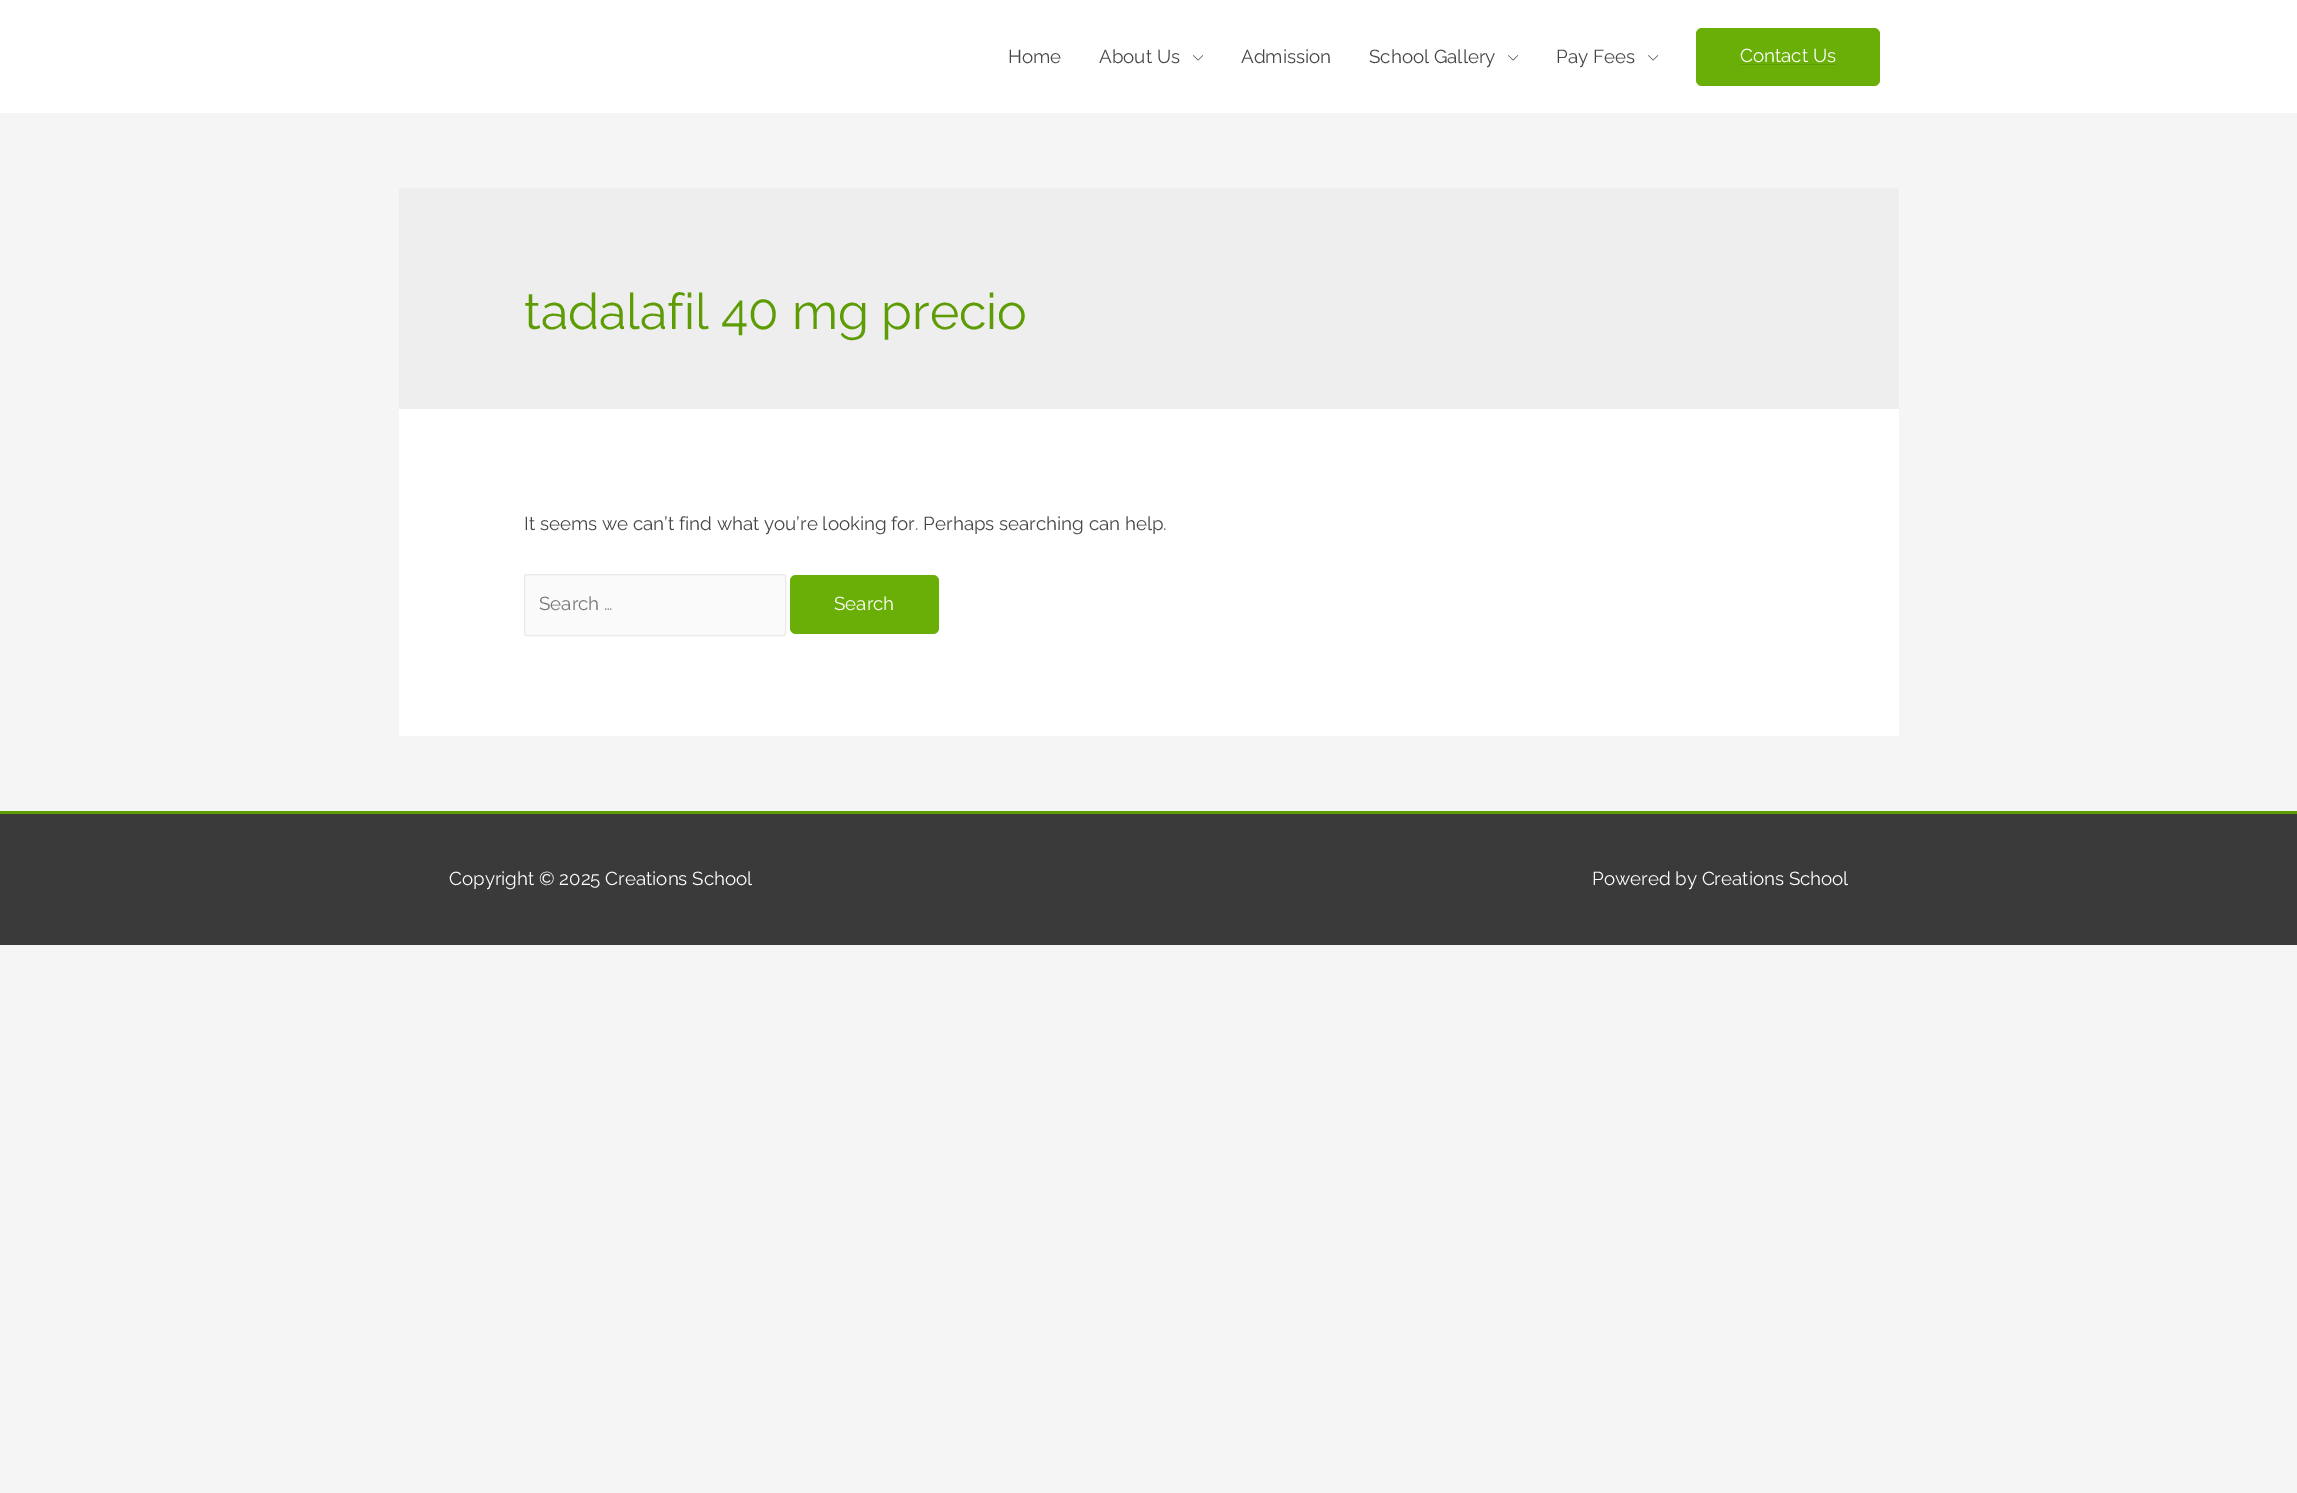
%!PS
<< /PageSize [2297 1493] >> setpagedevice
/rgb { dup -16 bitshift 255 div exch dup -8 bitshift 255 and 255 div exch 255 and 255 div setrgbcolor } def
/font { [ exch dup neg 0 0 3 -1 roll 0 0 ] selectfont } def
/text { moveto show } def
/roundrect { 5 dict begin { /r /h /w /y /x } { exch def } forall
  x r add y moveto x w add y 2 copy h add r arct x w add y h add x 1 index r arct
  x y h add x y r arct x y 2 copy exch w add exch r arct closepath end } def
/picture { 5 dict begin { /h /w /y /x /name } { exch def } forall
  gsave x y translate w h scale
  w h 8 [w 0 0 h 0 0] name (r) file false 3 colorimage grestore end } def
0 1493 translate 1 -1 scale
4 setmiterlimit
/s1 { /Raleway-Regular 18.75 font 16#464646 rgb } def
/s2 { /Raleway-Regular 18.75 font 16#FFFFFF rgb } def
/s3 { /Raleway-Regular 50 font 16#5D9C04 rgb } def
/s4 { /Raleway-Regular 18.75 font 16#757575 rgb } def
16#F5F5F5 rgb
0 0 2297 1493 rectfill
16#FFFFFF rgb
0 0 2297 113 rectfill
s1
(Home) 1008 63 text
(About Us) 1099 63 text
(pic1.raw) 1193 55 11 6 picture
(Admission) 1241 63 text
(School Gallery) 1369 63 text
(pic1.raw) 1508 55 11 6 picture
(Pay Fees) 1556 63 text
(pic1.raw) 1648 55 11 6 picture
16#6AAF08 rgb
1696 28 184 58 6 roundrect fill
s2
(Contact Us) 1740 62 text
16#5D9C04 rgb
1740 64 96 1 rectfill
16#EEEEEE rgb
399 188 1500 221 rectfill
s3
(tadalafil 40 mg precio) 524 329 text
16#FFFFFF rgb
399 409 1500 327 rectfill
s1
(It seems we can’t find what you’re looking for. Perhaps searching can help.) 524 530 text
16#FAFAFA rgb
524.5 574.5 261 61 2 roundrect gsave fill grestore
16#EAEAEA rgb
stroke
s4
(Search …) 539 610 text
16#6AAF08 rgb
790 575 149 59 6 roundrect fill
s2
(Search) 834 610 text
16#3A3A3A rgb
0 814 2297 131 rectfill
16#5D9C04 rgb
0 811 2297 3 rectfill
s2
(Copyright © 2025 Creations School) 449 885 text
(Powered by Creations School) 1592 885 text
showpage
